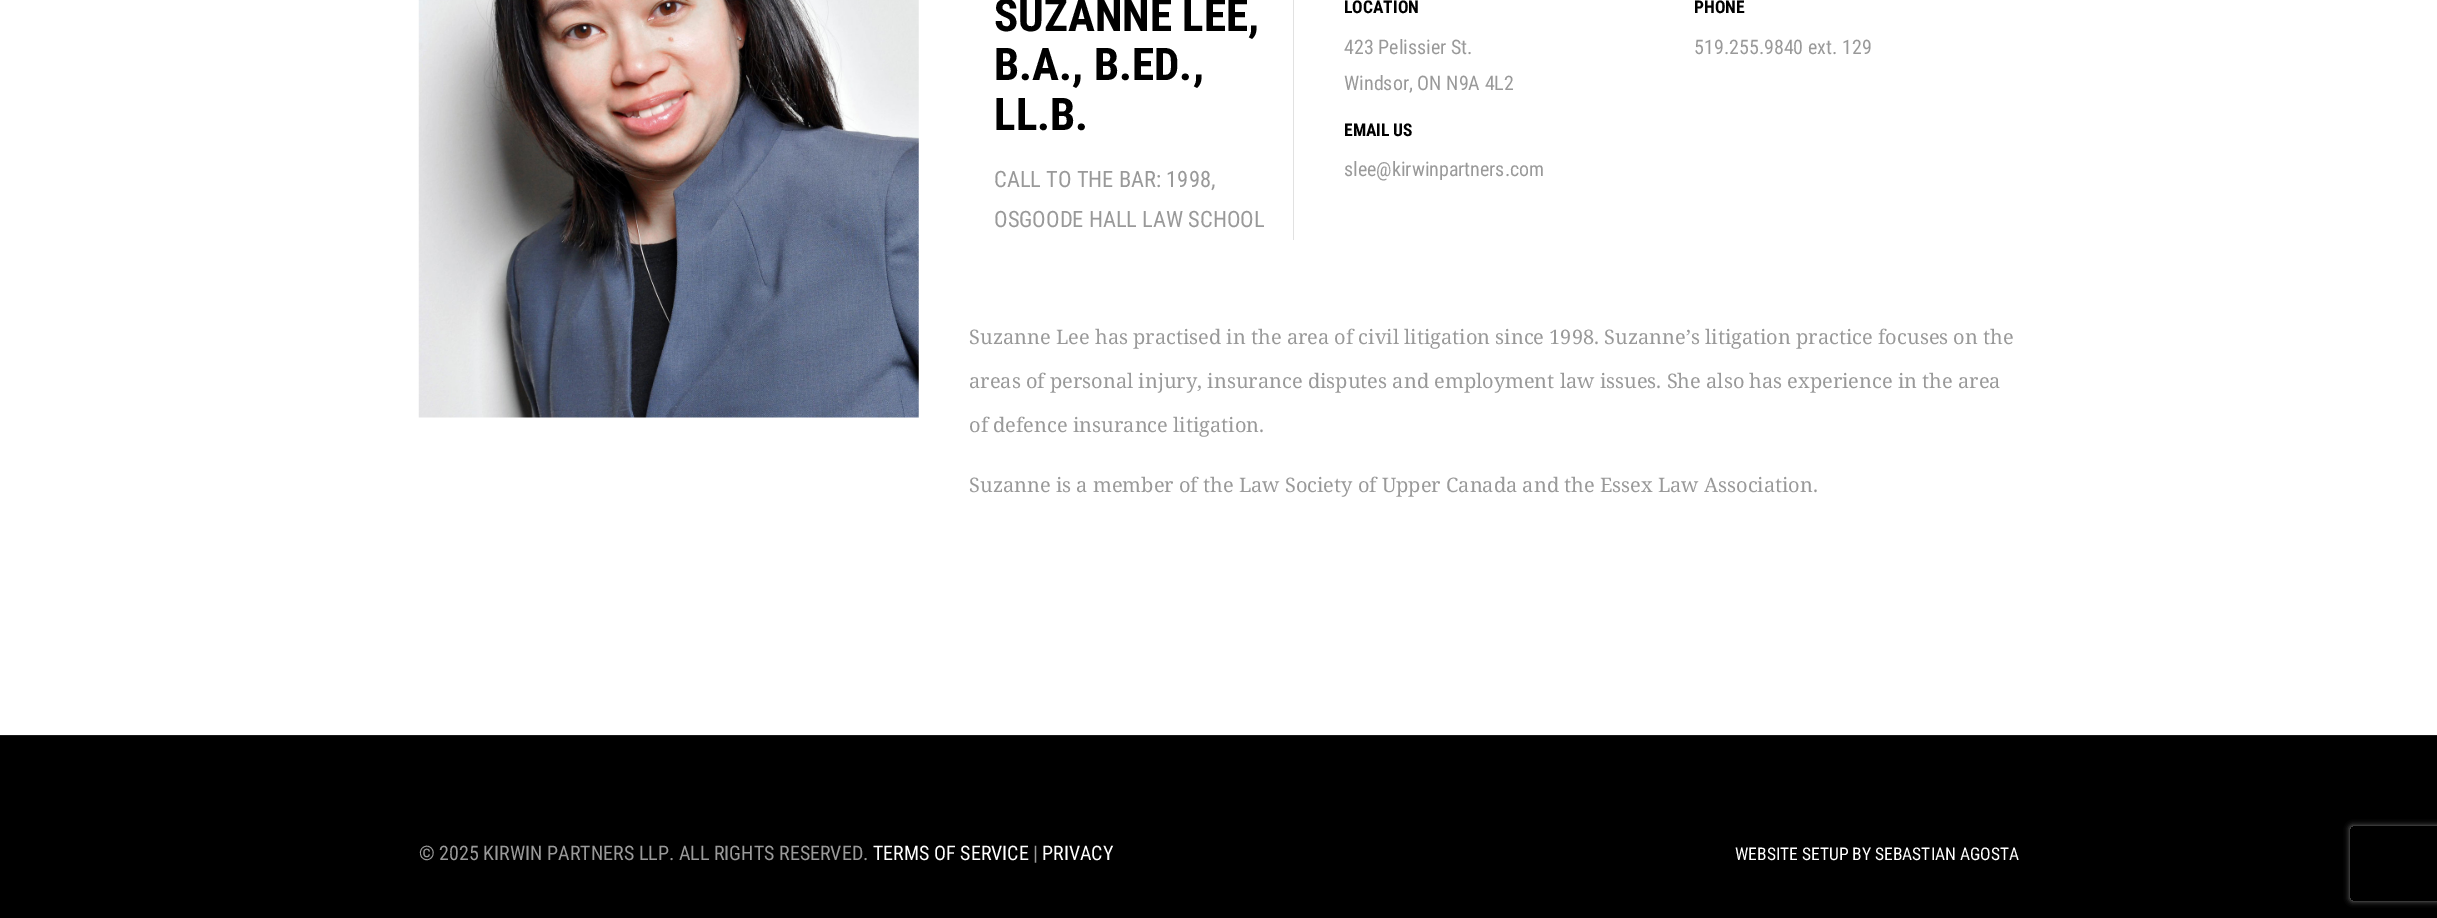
%!PS
<< /PageSize [2437 918] /PageUsesTransparency true >> setpagedevice
/rgb { dup -16 bitshift 255 div exch dup -8 bitshift 255 and 255 div exch 255 and 255 div setrgbcolor } def
/font { [ exch dup neg 0 0 3 -1 roll 0 0 ] selectfont } def
/text { moveto show } def
/alpha { dup .setfillconstantalpha .setstrokeconstantalpha } def
/roundrect { 5 dict begin { /r /h /w /y /x } { exch def } forall
  x r add y moveto x w add y 2 copy h add r arct x w add y h add x 1 index r arct
  x y h add x y r arct x y 2 copy exch w add exch r arct closepath end } def
/shadow { 12 dict begin { /a /b /q /h /w /y /x } { exch def } forall gsave /was 0 def
  9 -2 -9 { dup b mul 4 div /e exch def 1 sub .425 mul 2.718 exch exp 1 add a .99 .min exch div /now exch def
    1 1 now sub 1 was sub div sub alpha /was now def
    w h .min e 2 mul add 0 gt { x e sub y e sub w e 2 mul add h e 2 mul add
      q e add b .6 mul add w h .min 2 div e add .min 0 .max roundrect fill } if } for grestore end } def
/picture { 5 dict begin { /h /w /y /x /name } { exch def } forall
  gsave x y translate w h scale
  w h 8 [w 0 0 h 0 0] name (r) file false 3 colorimage grestore end } def
0 .pushpdf14devicefilter
0 918 translate 1 -1 scale
4 setmiterlimit
/s1 { /RobotoCondensed-Bold 45 font 16#000000 rgb } def
/s2 { /RobotoCondensed-Regular 22.5 font 16#999999 rgb } def
/s3 { /RobotoCondensed-Bold 17.5 font 16#000000 rgb } def
/s4 { /RobotoCondensed-Regular 20 font 16#999999 rgb } def
/s5 { /NotoSerif-Regular 20 font 16#999999 rgb } def
/s6 { /RobotoCondensed-Regular 20 font 16#FFFFFF rgb } def
/s7 { /RobotoCondensed-Regular 17.5 font 16#FFFFFF rgb } def
16#FFFFFF rgb
0 0 2437 918 rectfill
(pic1.raw) 418 0 501 418 picture
s1
(SUZANNE LEE,) 994 31 text
(B.A., B.ED.,) 994 80 text
(LL.B.) 994 130 text
16#E1E1E1 rgb
1293 0 1 240 rectfill
s2
(CALL TO THE BAR: 1998,) 994 187 text
(OSGOODE HALL LAW SCHOOL) 994 227 text
s3
(LOCATION) 1344 13 text
s4
(423 Pelissier St.) 1344 54 text
(Windsor, ON N9A 4L2) 1344 90 text
s3
(EMAIL US) 1344 136 text
s4
(slee@kirwinpartners.com) 1344 176 text
s3
(PHONE) 1694 13 text
s4
(519.255.9840 ext. 129) 1694 54 text
s5
(Suzanne Lee has practised in the area of civil litigation since 1998. Suzanne’s litigation practice focuses on the) 969 344 text
(areas of personal injury, insurance disputes and employment law issues. She also has experience in the area) 969 388 text
(of defence insurance litigation.) 969 432 text
(Suzanne is a member of the Law Society of Upper Canada and the Essex Law Association.) 969 492 text
16#000000 rgb
0 736 2437 182 rectfill
16#1A1A1A rgb
0 735 2437 1 rectfill
s4
(© 2025 KIRWIN PARTNERS LLP. ALL RIGHTS RESERVED.) 419 860 text
s6
(TERMS OF SERVICE) 873 860 text
s4
(|) 1033 860 text
s6
(PRIVACY) 1042 860 text
s7
(WEBSITE SETUP BY SEBASTIAN AGOSTA) 1735 860 text
gsave
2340 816 moveto 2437 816 lineto 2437 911 lineto 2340 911 lineto closepath 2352.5 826 moveto 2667.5 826 lineto 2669 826 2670 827 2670 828.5 curveto 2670 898.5 lineto 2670 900 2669 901 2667.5 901 curveto 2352.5 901 lineto 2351 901 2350 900 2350 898.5 curveto 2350 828.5 lineto 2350 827 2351 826 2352.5 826 curveto closepath eoclip newpath
16#808080 rgb
2350 826 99 75 2.5 3 1 shadow
grestore
.poppdf14devicefilter showpage
